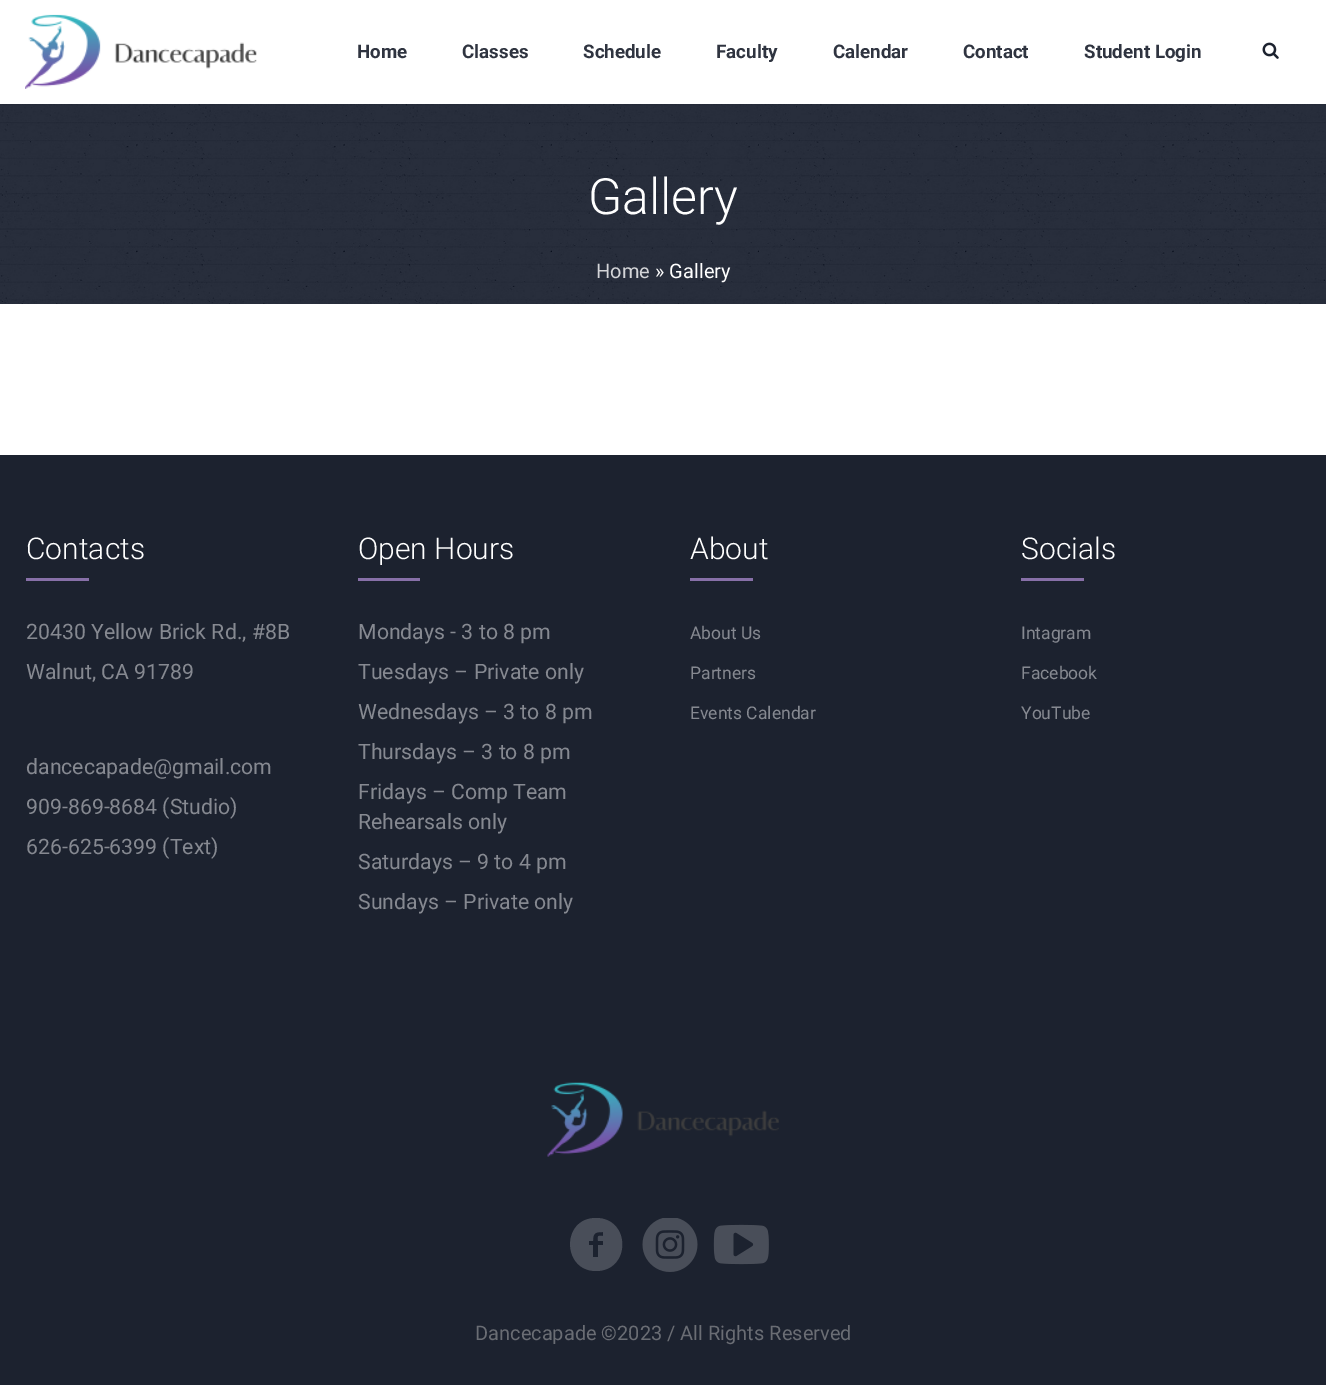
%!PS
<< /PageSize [1326 1385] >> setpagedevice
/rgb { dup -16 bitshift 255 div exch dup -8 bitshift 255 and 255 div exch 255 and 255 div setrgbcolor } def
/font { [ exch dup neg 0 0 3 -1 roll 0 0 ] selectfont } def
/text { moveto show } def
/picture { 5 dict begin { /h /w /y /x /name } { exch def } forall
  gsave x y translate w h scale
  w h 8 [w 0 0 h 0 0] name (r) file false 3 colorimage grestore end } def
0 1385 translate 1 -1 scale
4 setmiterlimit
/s1 { /Roboto-Bold 18.75 font 16#2F3440 rgb } def
/s2 { /Roboto-Light 50 font 16#FFFFFF rgb } def
/s3 { /Roboto-Regular 20 font 16#D4D5D8 rgb } def
/s4 { /Roboto-Regular 20 font 16#FFFFFF rgb } def
/s5 { /Roboto-Light 30 font 16#FFFFFF rgb } def
/s6 { /Roboto-Regular 21.25 font 16#868991 rgb } def
/s7 { /Roboto-Regular 17.5 font 16#868991 rgb } def
/s8 { /Roboto-Regular 20 font 16#6A6D74 rgb } def
16#FFFFFF rgb
0 0 1326 1385 rectfill
(pic1.raw) 25 14 232 75 picture
s1
(Home) 357 58 text
(Classes) 462 58 text
(Schedule) 583 58 text
(Faculty) 716 58 text
(Calendar) 833 58 text
(Contact) 963 58 text
(Student Login) 1084 58 text
(pic2.raw) 1262 42 17 17 picture
(pic3.raw) 0 104 1326 200 picture
s2
(Gallery) 588 214 text
s3
(Home) 596 278 text
s4
(» Gallery) 655 278 text
16#1C222F rgb
0 455 1326 930 rectfill
s5
(Contacts) 26 559 text
16#8770A8 rgb
26 578 63 3 rectfill
s6
(20430 Yellow Brick Rd., #8B) 26 639 text
(Walnut, CA 91789) 26 679 text
(dancecapade@gmail.com) 26 774 text
(909-869-8684 \(Studio\)) 26 814 text
(626-625-6399 \(Text\)) 26 854 text
s5
(Open Hours) 358 559 text
16#8770A8 rgb
358 578 62 3 rectfill
s6
(Mondays - 3 to 8 pm) 358 639 text
(Tuesdays – Private only) 358 679 text
(Wednesdays – 3 to 8 pm) 358 719 text
(Thursdays – 3 to 8 pm) 358 759 text
(Fridays – Comp Team) 358 799 text
(Rehearsals only) 358 829 text
(Saturdays – 9 to 4 pm) 358 869 text
(Sundays – Private only) 358 909 text
s5
(About) 690 559 text
16#8770A8 rgb
690 578 63 3 rectfill
s7
(About Us) 690 639 text
(Partners) 690 679 text
(Events Calendar) 690 719 text
s5
(Socials) 1021 559 text
16#8770A8 rgb
1021 578 63 3 rectfill
s7
(Intagram) 1021 639 text
(Facebook) 1021 679 text
(YouTube) 1021 719 text
(pic4.raw) 547 1082 232 75 picture
16#494E59 rgb
596 1218 moveto 631 1218 631 1271 596 1271 curveto 562 1271 561 1218 596 1218 curveto closepath 603 1236 moveto 603 1232 lineto 595 1232 593 1233 593 1241 curveto 589 1241 lineto 589 1245 lineto 593 1245 lineto 593 1257 lineto 598 1257 lineto 598 1245 lineto 603 1245 lineto 603 1241 lineto 598 1241 lineto 598 1235 597 1236 603 1236 curveto closepath fill
(pic5.raw) 642 1218 56 54 picture
(pic6.raw) 713 1224 56 41 picture
s8
(Dancecapade ©2023 / All Rights Reserved) 475 1340 text
showpage
